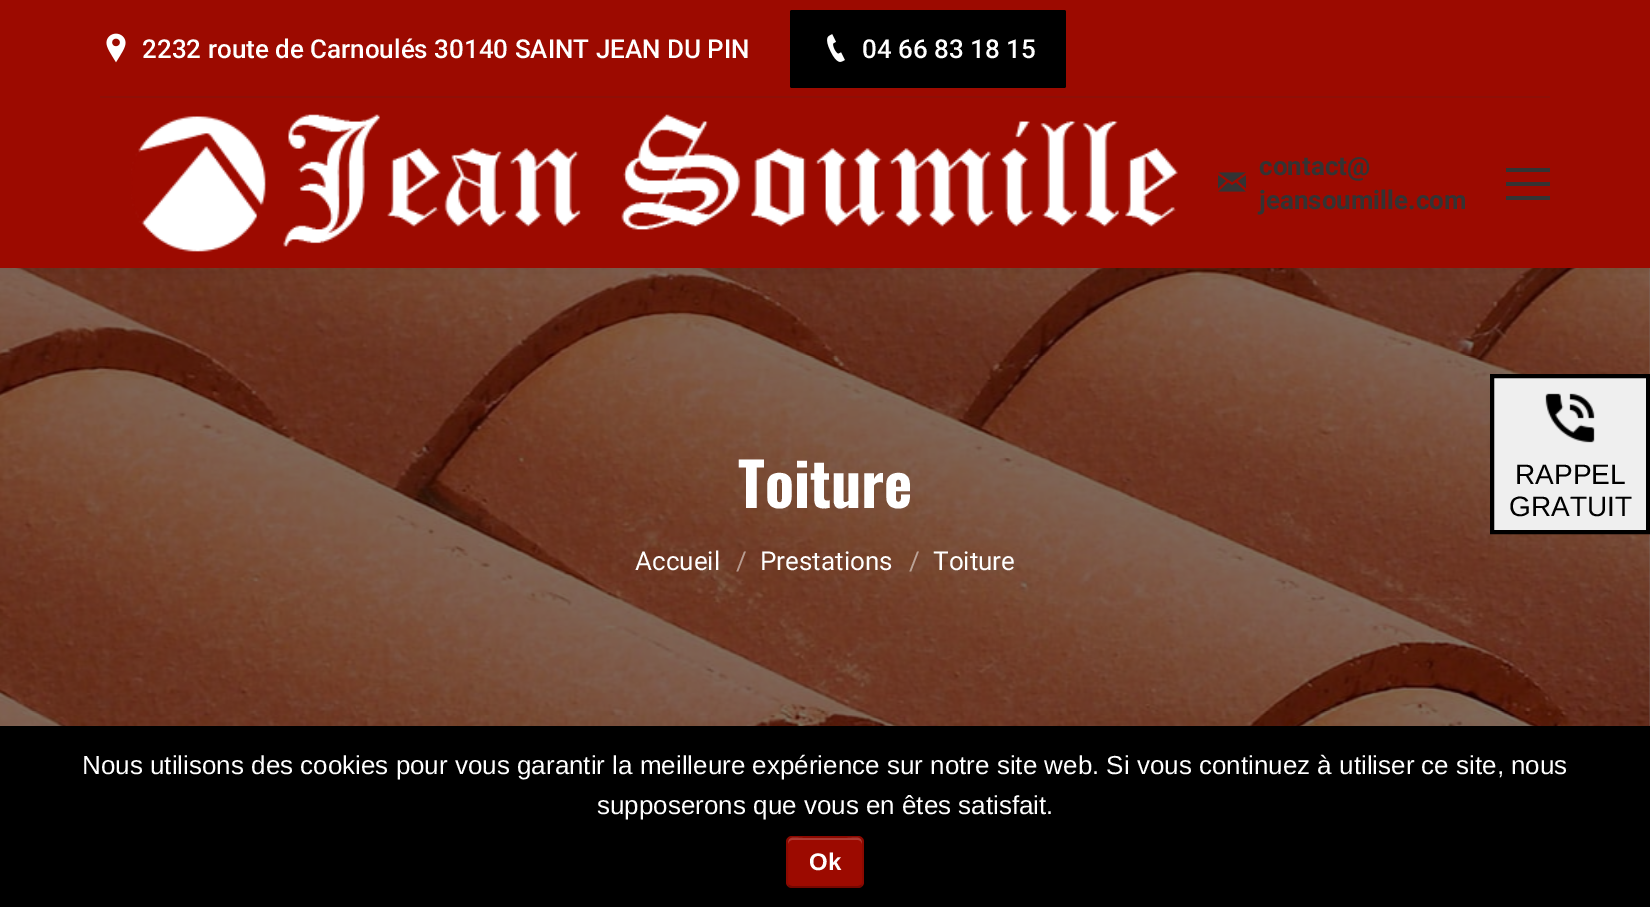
%!PS
<< /PageSize [1650 907] /PageUsesTransparency true >> setpagedevice
/rgb { dup -16 bitshift 255 div exch dup -8 bitshift 255 and 255 div exch 255 and 255 div setrgbcolor } def
/font { [ exch dup neg 0 0 3 -1 roll 0 0 ] selectfont } def
/text { moveto show } def
/alpha { dup .setfillconstantalpha .setstrokeconstantalpha } def
/roundrect { 5 dict begin { /r /h /w /y /x } { exch def } forall
  x r add y moveto x w add y 2 copy h add r arct x w add y h add x 1 index r arct
  x y h add x y r arct x y 2 copy exch w add exch r arct closepath end } def
/shadow { 12 dict begin { /a /b /q /h /w /y /x } { exch def } forall gsave /was 0 def
  9 -2 -9 { dup b mul 4 div /e exch def 1 sub .425 mul 2.718 exch exp 1 add a .99 .min exch div /now exch def
    1 1 now sub 1 was sub div sub alpha /was now def
    w h .min e 2 mul add 0 gt { x e sub y e sub w e 2 mul add h e 2 mul add
      q e add b .6 mul add w h .min 2 div e add .min 0 .max roundrect fill } if } for grestore end } def
/picture { 5 dict begin { /h /w /y /x /name } { exch def } forall
  gsave x y translate w h scale
  w h 8 [w 0 0 h 0 0] name (r) file false 3 colorimage grestore end } def
0 .pushpdf14devicefilter
0 907 translate 1 -1 scale
4 setmiterlimit
/s1 { /Roboto-Medium 26 font 16#FFFFFF rgb } def
/s2 { /Roboto-Bold 26 font 16#333333 rgb } def
/s3 { /Oswald-Bold 60 font 16#FFFFFF rgb } def
/s4 { /Roboto-Regular 26 font 16#FFFFFF rgb } def
/s5 { /Roboto-Regular 26 font 16#B89D92 rgb } def
/s6 { /Roboto-Regular 26 font 16#BBA397 rgb } def
/s7 { /LiberationSans-Regular 28 font 16#000000 rgb } def
/s8 { /LiberationSans-Regular 26 font 16#FFFFFF rgb } def
/s9 { /LiberationSans-Bold 24 font 16#FFFFFF rgb } def
16#FFFFFF rgb
0 0 1650 907 rectfill
(pic1.raw) 1649 268 1 458 picture
(pic6.raw) 0 268 1650 458 picture
0.5 alpha
16#000000 rgb
0 268 1650 458 rectfill
1 alpha
-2 -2 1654 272 0 15 0.07 shadow
16#9C0A00 rgb
0 0 1650 268 rectfill
(pic2.raw) 106 33 20 30 picture
s1
(2232 route de Carnoulés 30140 SAINT JEAN DU PIN) 142 58 text
16#000000 rgb
790 10 276 78 2 roundrect fill
(pic3.raw) 827 34 18 28 picture
s1
(04 66 83 18 15) 862 58 text
16#8F0F06 rgb
100 96 1450 2 rectfill
(pic4.raw) 131 114 1047 138 picture
(pic5.raw) 1218 172 28 20 picture
s2
(contact@) 1259 175 text
(jeansoumille.com) 1259 209 text
1506 182 44 4 rectfill
1506 168 44 4 rectfill
1506 196 44 4 rectfill
s3
(Toiture) 738 508 text
s4
(Accueil) 635 570 text
s5
(/) 736 570 text
s4
(Prestations) 760 570 text
s6
(/) 909 570 text
s4
(Toiture) 933 570 text
16#EFEFEF rgb
1492 376 moveto 1648 376 lineto 1648 532 lineto 1492 532 lineto closepath gsave fill grestore
16#000000 rgb
4 setlinewidth
stroke
(pic7.raw) 1545 393 50 50 picture
s7
(RAPPEL) 1515 484 text
(GRATUIT) 1509 516 text
0 726 1650 181 rectfill
s8
(Nous utilisons des cookies pour vous garantir la meilleure expérience sur notre site web. Si vous continuez à utiliser ce site, nous) 82 774 text
(supposerons que vous en êtes satisfait.) 597 814 text
16#9C0A00 rgb
786 836 78 52 6 roundrect fill
16#B03B33 rgb
792 840 moveto 858 840 lineto 860 840 862 842 862 844 curveto 862 835 855 838 847 838 curveto 803 838 lineto 795 838 788 835 788 844 curveto 788 842 790 840 792 840 curveto closepath fill
0.25 alpha
16#000000 rgb
2 setlinewidth
861.5 885.5 moveto 860.5 886.5 859.5 887 858 887 curveto 792 887 lineto 790.5 887 789.5 886.5 788.5 885.5 curveto stroke
0.1 alpha
788.5 885.5 moveto 787.5 884.5 787 883.5 787 882 curveto 787 842 lineto 787 840.5 787.5 839.5 788.5 838.5 curveto 789.5 837.5 790.5 837 792 837 curveto 858 837 lineto 859.5 837 860.5 837.5 861.5 838.5 curveto 862.5 839.5 863 840.5 863 842 curveto 863 882 lineto 863 883.5 862.5 884.5 861.5 885.5 curveto stroke
1 alpha
s9
(Ok) 809 870 text
.poppdf14devicefilter showpage
